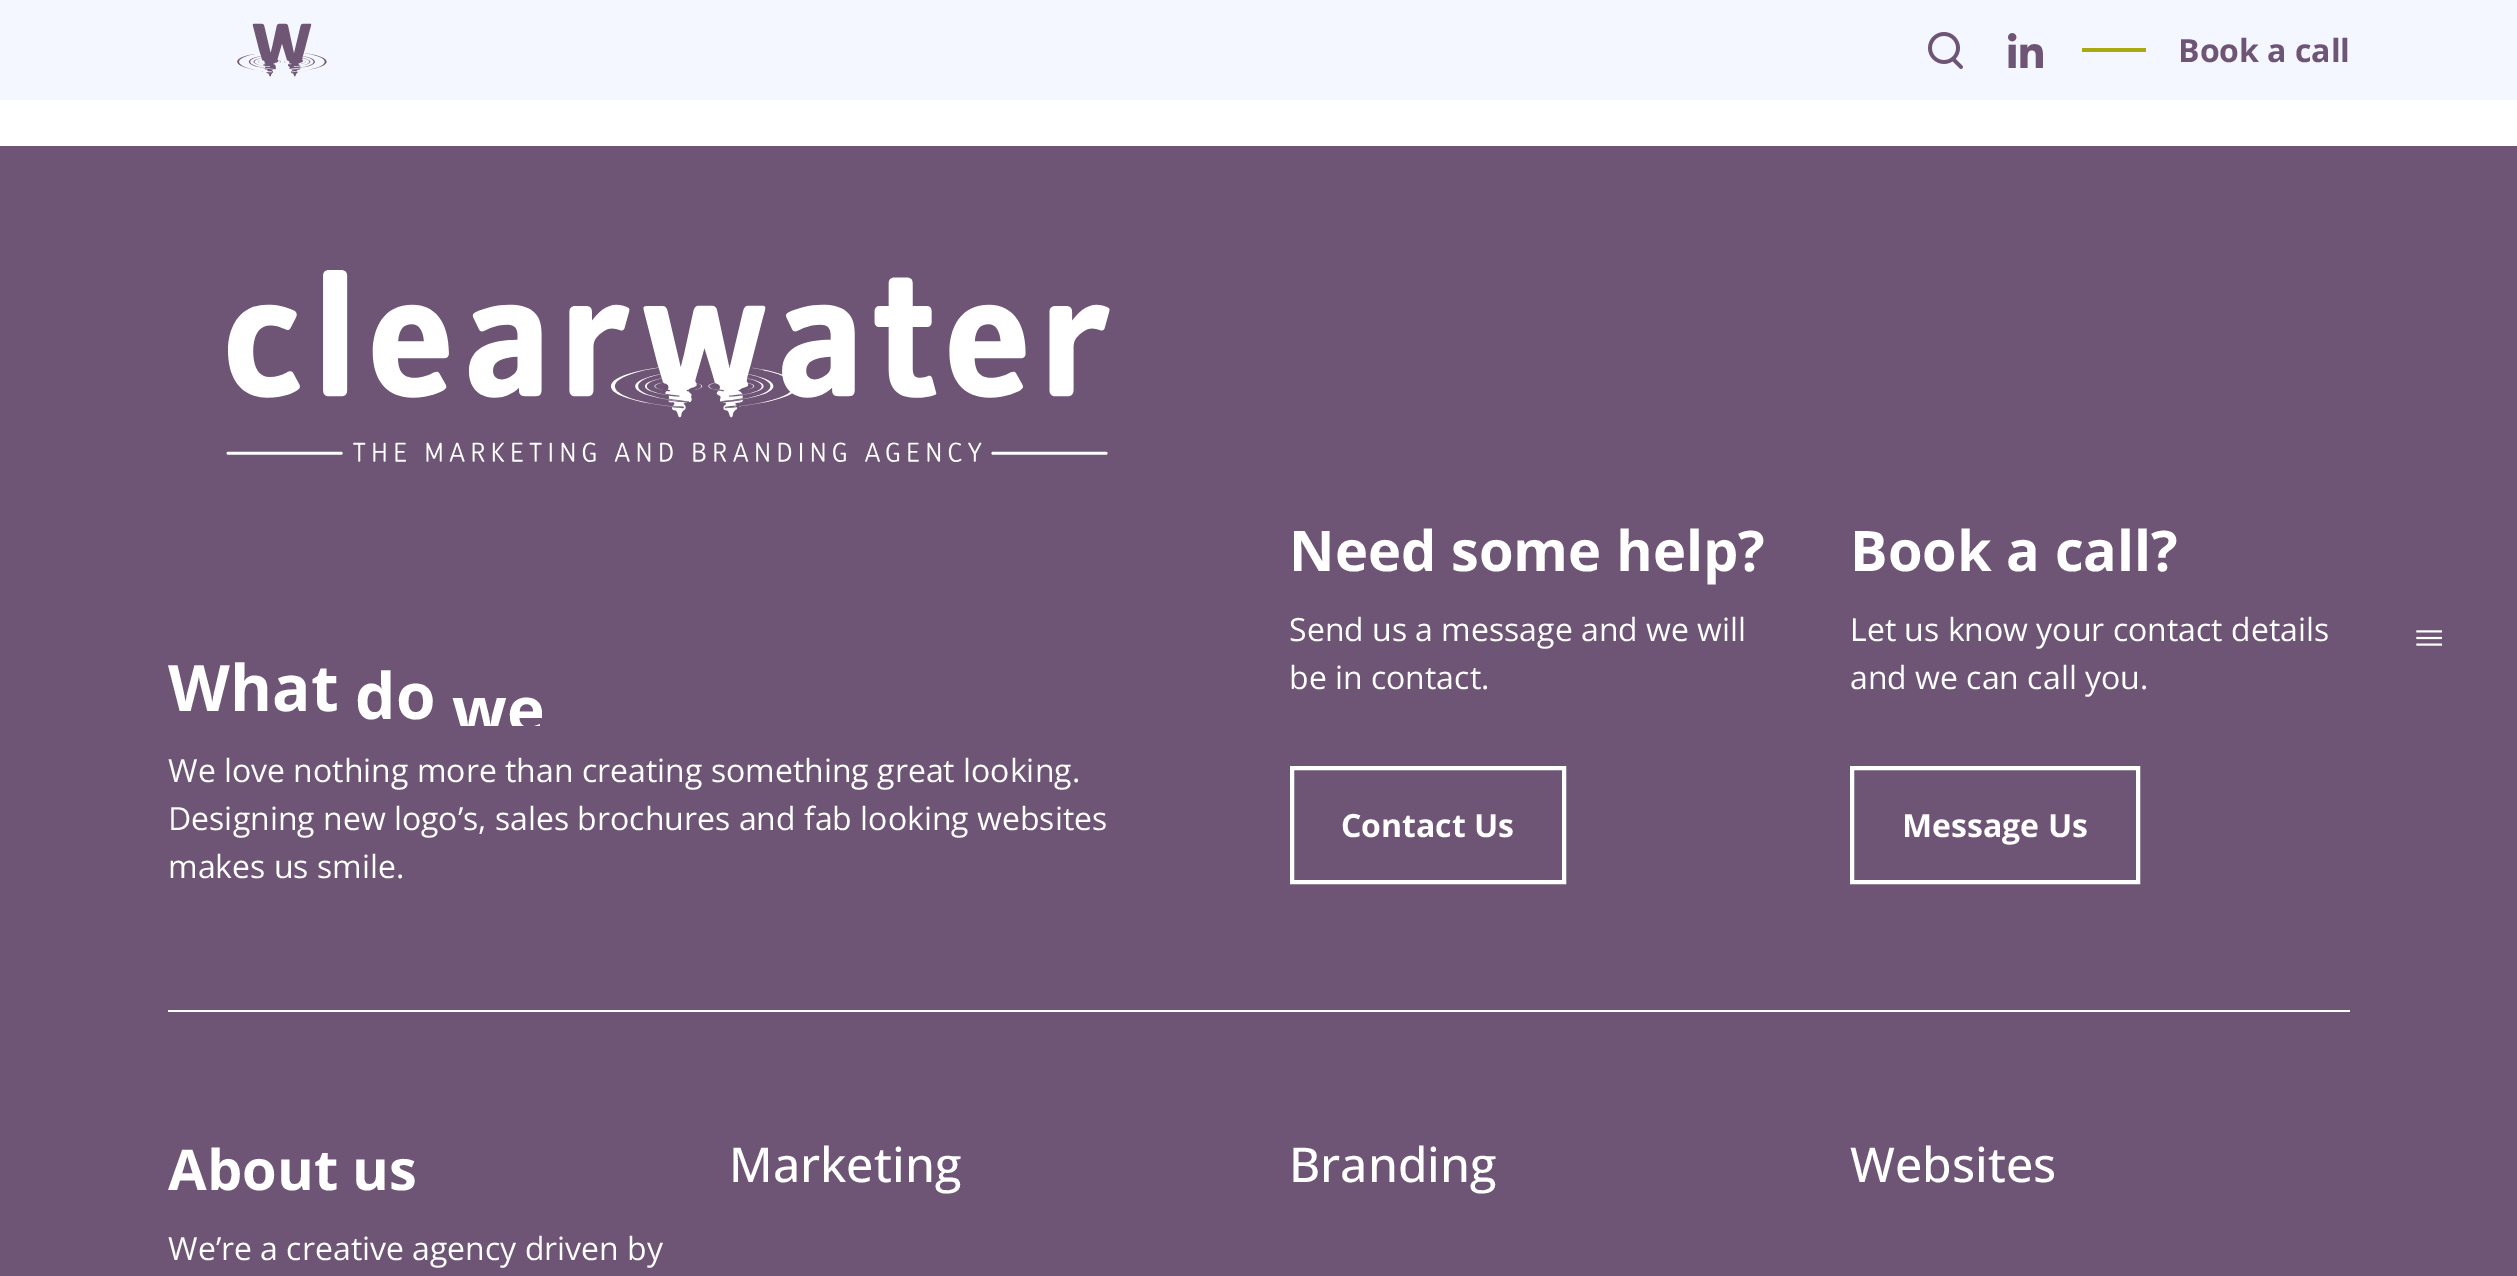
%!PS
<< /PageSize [2517 1276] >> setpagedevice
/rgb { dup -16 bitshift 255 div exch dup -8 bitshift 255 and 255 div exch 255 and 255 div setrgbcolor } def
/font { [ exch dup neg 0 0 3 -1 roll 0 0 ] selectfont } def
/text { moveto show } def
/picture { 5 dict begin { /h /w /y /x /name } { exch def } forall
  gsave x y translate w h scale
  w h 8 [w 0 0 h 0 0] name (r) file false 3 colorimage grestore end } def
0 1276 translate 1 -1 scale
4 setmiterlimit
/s1 { /OpenSans-Bold 32 font 16#6E5575 rgb } def
/s2 { /OpenSans-Bold 64 font 16#FFFFFF rgb } def
/s3 { /OpenSans-Regular 32 font 16#FFFFFF rgb } def
/s4 { /OpenSans-Bold 56 font 16#FFFFFF rgb } def
/s5 { /OpenSans-Bold 32 font 16#FFFFFF rgb } def
/s6 { /OpenSans-Medium 48 font 16#FFFFFF rgb } def
16#FFFFFF rgb
0 0 2517 1276 rectfill
16#F4F7FF rgb
0 0 2517 100 rectfill
(pic1.raw) 237 23 90 54 picture
(pic2.raw) 1928 32 35 37 picture
(pic3.raw) 2008 33 35 35 picture
16#A7AB10 rgb
2082 48 64 4 rectfill
s1
(Book a call) 2178 62 text
0 146 2517 1130 rectfill
(pic4.raw) 226 270 884 192 picture
s2
(What) 168 711 text
(do) 355 719 text
gsave
452 670 92 56 rectclip
(we) 452 733 text
grestore
s3
(We love nothing more than creating something great looking.) 168 782 text
(Designing new logo’s, sales brochures and fab looking websites) 168 830 text
(makes us smile.) 168 878 text
s4
(Need some help?) 1289 571 text
s3
(Send us a message and we will) 1289 641 text
(be in contact.) 1289 689 text
4 setlinewidth
1292 768 272 114 rectstroke
s5
(Contact Us) 1341 837 text
s4
(Book a call?) 1850 571 text
s3
(Let us know your contact details) 1850 641 text
(and we can call you.) 1850 689 text
1852 768 286 114 rectstroke
s5
(Message Us) 1902 837 text
168 1010 2182 2 rectfill
s4
(About us) 168 1190 text
s3
(We’re a creative agency driven by) 168 1260 text
s6
(Marketing) 729 1182 text
(Branding) 1289 1182 text
(Websites) 1850 1182 text
(pic5.raw) 2416 630 26 16 picture
showpage
